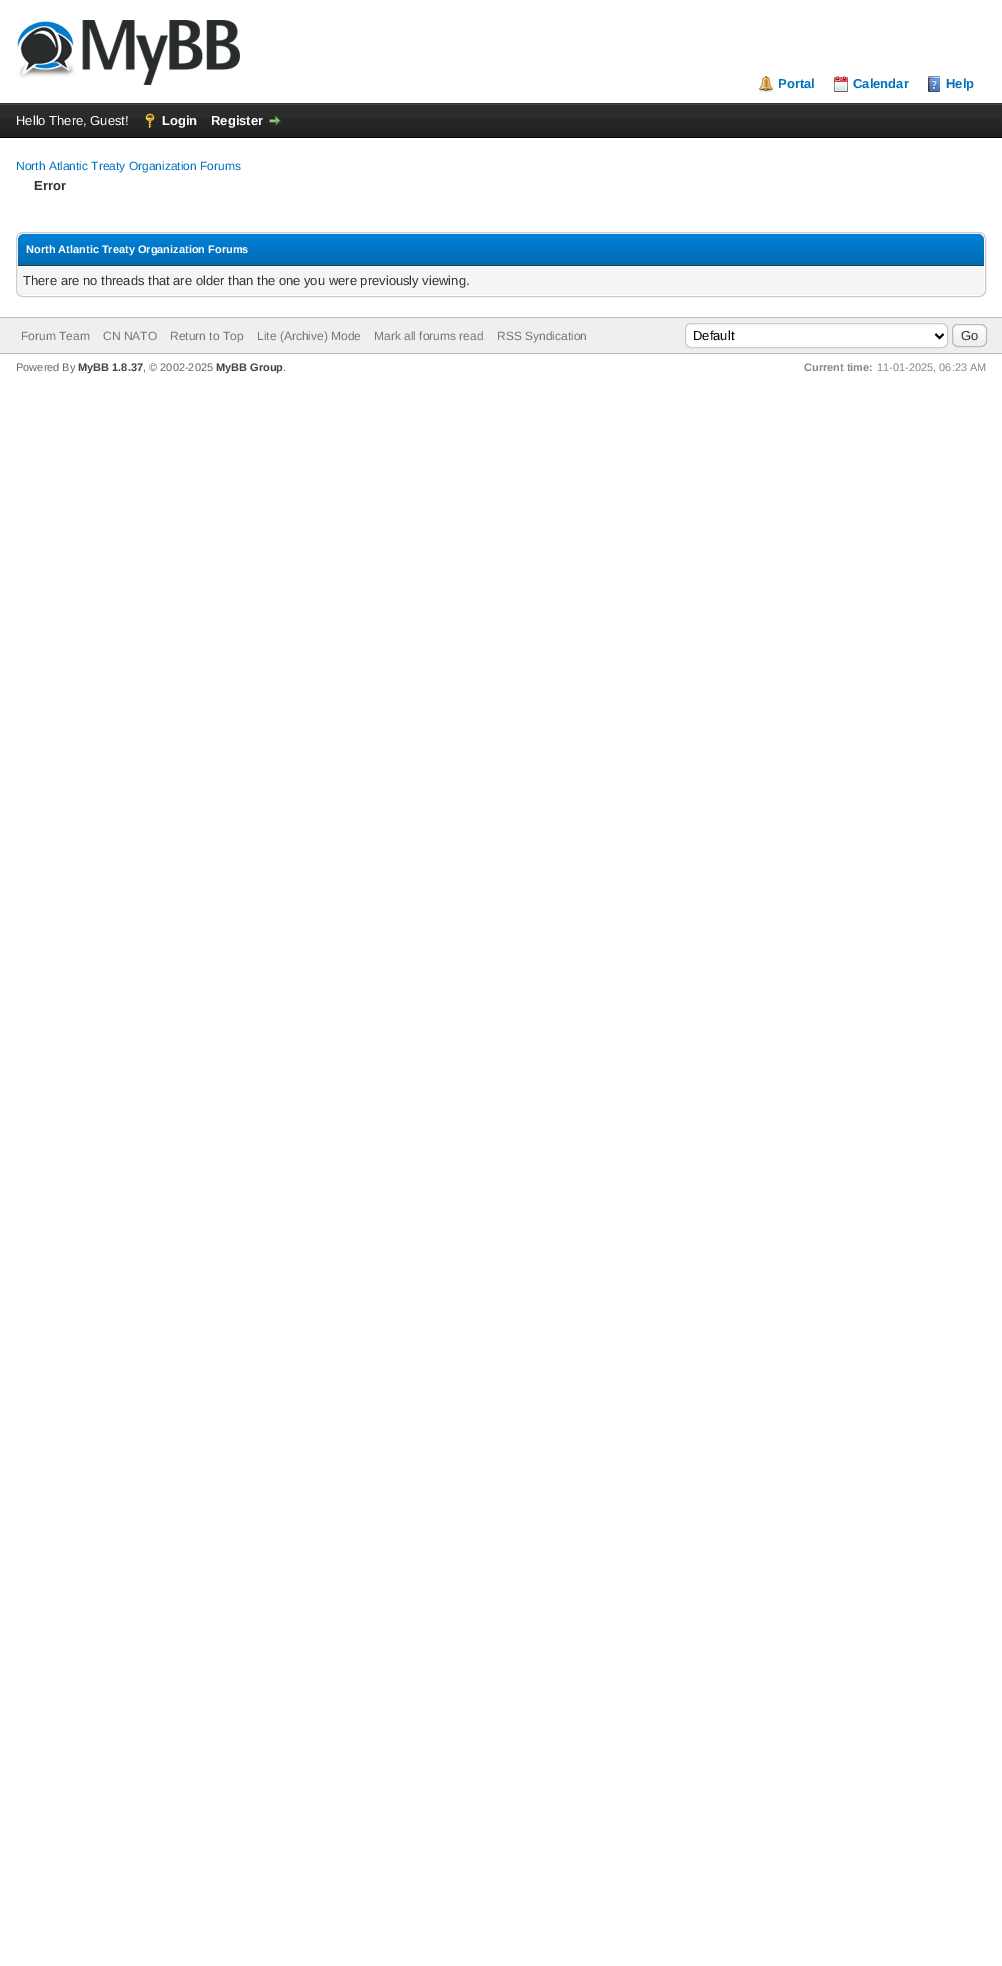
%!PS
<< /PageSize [1002 1966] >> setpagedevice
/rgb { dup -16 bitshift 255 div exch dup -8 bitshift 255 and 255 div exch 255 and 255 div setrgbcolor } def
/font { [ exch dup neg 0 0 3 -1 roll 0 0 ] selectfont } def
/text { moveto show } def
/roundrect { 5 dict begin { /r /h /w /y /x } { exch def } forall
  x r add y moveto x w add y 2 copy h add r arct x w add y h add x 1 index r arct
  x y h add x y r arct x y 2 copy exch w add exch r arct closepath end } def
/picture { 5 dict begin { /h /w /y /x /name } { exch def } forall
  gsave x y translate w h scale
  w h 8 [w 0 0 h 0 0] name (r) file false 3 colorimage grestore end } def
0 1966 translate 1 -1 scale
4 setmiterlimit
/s1 { /LiberationSans-Bold 13 font 16#0072BC rgb } def
/s2 { /LiberationSans-Regular 13 font 16#FFFFFF rgb } def
/s3 { /LiberationSans-Bold 13 font 16#FFFFFF rgb } def
/s4 { /LiberationSans-Regular 12 font 16#0072BC rgb } def
/s5 { /LiberationSans-Bold 13 font 16#333333 rgb } def
/s6 { /LiberationSans-Bold 11 font 16#FFFFFF rgb } def
/s7 { /LiberationSans-Regular 13 font 16#333333 rgb } def
/s8 { /LiberationSans-Regular 12 font 16#777777 rgb } def
/s9 { /LiberationSans-Regular 13 font 16#000000 rgb } def
/s10 { /LiberationSans-Regular 11 font 16#666666 rgb } def
/s11 { /LiberationSans-Bold 11 font 16#444444 rgb } def
/s12 { /LiberationSans-Bold 11 font 16#888888 rgb } def
/s13 { /LiberationSans-Regular 11 font 16#888888 rgb } def
16#FFFFFF rgb
0 0 1002 1966 rectfill
16#263C30 rgb
0 103 1002 1 rectfill
(pic1.raw) 16 20 224 65 picture
(pic2.raw) 759 76 14 16 picture
s1
(Portal) 778 88 text
(pic3.raw) 834 76 14 16 picture
(Calendar) 853 88 text
(pic4.raw) 928 76 12 16 picture
(Help) 946 88 text
(pic5.raw) 0 105 1002 32 picture
16#444444 rgb
0 104 1002 1 rectfill
16#000000 rgb
0 137 1002 1 rectfill
s2
(Hello There, Guest!) 16 125 text
(pic6.raw) 145 113 10 15 picture
s3
(Login) 162 125 text
(Register) 211 125 text
(pic7.raw) 269 116 12 10 picture
s4
(North Atlantic Treaty Organization Forums) 16 170 text
s5
(Error) 34 190 text
16#CCCCCC rgb
16.5 232.5 969 64 6.5 roundrect stroke
(pic8.raw) 18 234 966 31 picture
16#263C30 rgb
18 265 966 1 rectfill
s6
(North Atlantic Treaty Organization Forums) 26 253 text
16#F5F5F5 rgb
18 266 moveto 984 266 lineto 984 289 lineto 984 292.5 981.5 295 978 295 curveto 24 295 lineto 20.5 295 18 292.5 18 289 curveto closepath fill
16#FFFFFF rgb
18 266 966 1 rectfill
s7
(There are no threads that are older than the one you were previously viewing.) 23 285 text
16#EFEFEF rgb
0 318 1002 35 rectfill
16#BBBBBB rgb
0 317 1002 1 rectfill
0 353 1002 1 rectfill
s8
(Forum Team) 21 340 text
(CN NATO) 103 340 text
(Return to Top) 170 340 text
(Lite \(Archive\) Mode) 257 340 text
(Mark all forums read) 374 340 text
(RSS Syndication) 497 340 text
16#FFFFFF rgb
685.5 323.5 262 24 5.5 roundrect gsave fill grestore
16#CCCCCC rgb
stroke
16#000000 rgb
2 setlinewidth
935.5 334 moveto 939.5 338 lineto 943.5 334 lineto stroke
s9
(Default) 693 340 text
(pic9.raw) 952 325 35 15 picture
16#BBBBBB rgb
1 setlinewidth
952.5 324.5 34 22 5.5 roundrect stroke
s7
(Go) 961 340 text
s10
(Powered By) 16 371 text
s11
(MyBB 1.8.37) 78 371 text
s10
(, © 2002-2025) 143 371 text
s11
(MyBB Group) 216 371 text
s10
(.) 283 371 text
s12
(Current time:) 804 371 text
s13
(11-01-2025, 06:23 AM) 877 371 text
showpage
